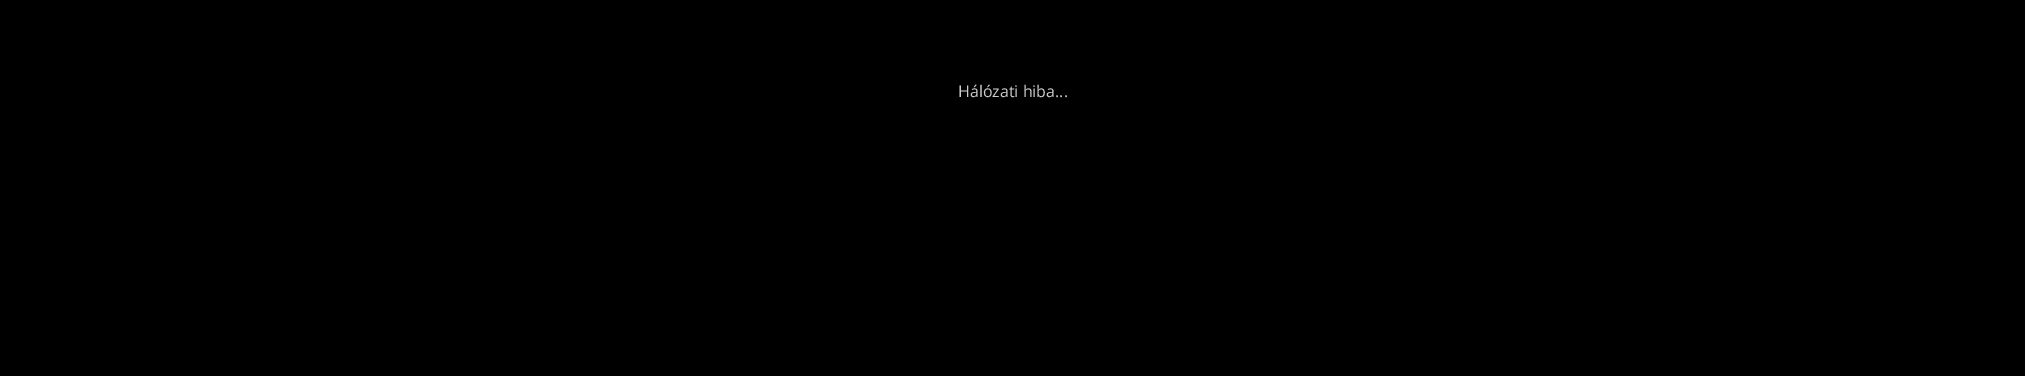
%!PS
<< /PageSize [2025 376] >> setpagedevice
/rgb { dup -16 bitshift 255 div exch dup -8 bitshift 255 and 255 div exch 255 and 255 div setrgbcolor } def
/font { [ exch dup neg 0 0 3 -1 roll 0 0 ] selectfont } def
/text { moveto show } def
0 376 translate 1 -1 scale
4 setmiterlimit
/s1 { /OpenSans-Regular 16 font 16#CCCCCC rgb } def
16#000000 rgb
0 0 2025 376 rectfill
s1
(Hálózati hiba...) 958 97 text
showpage
